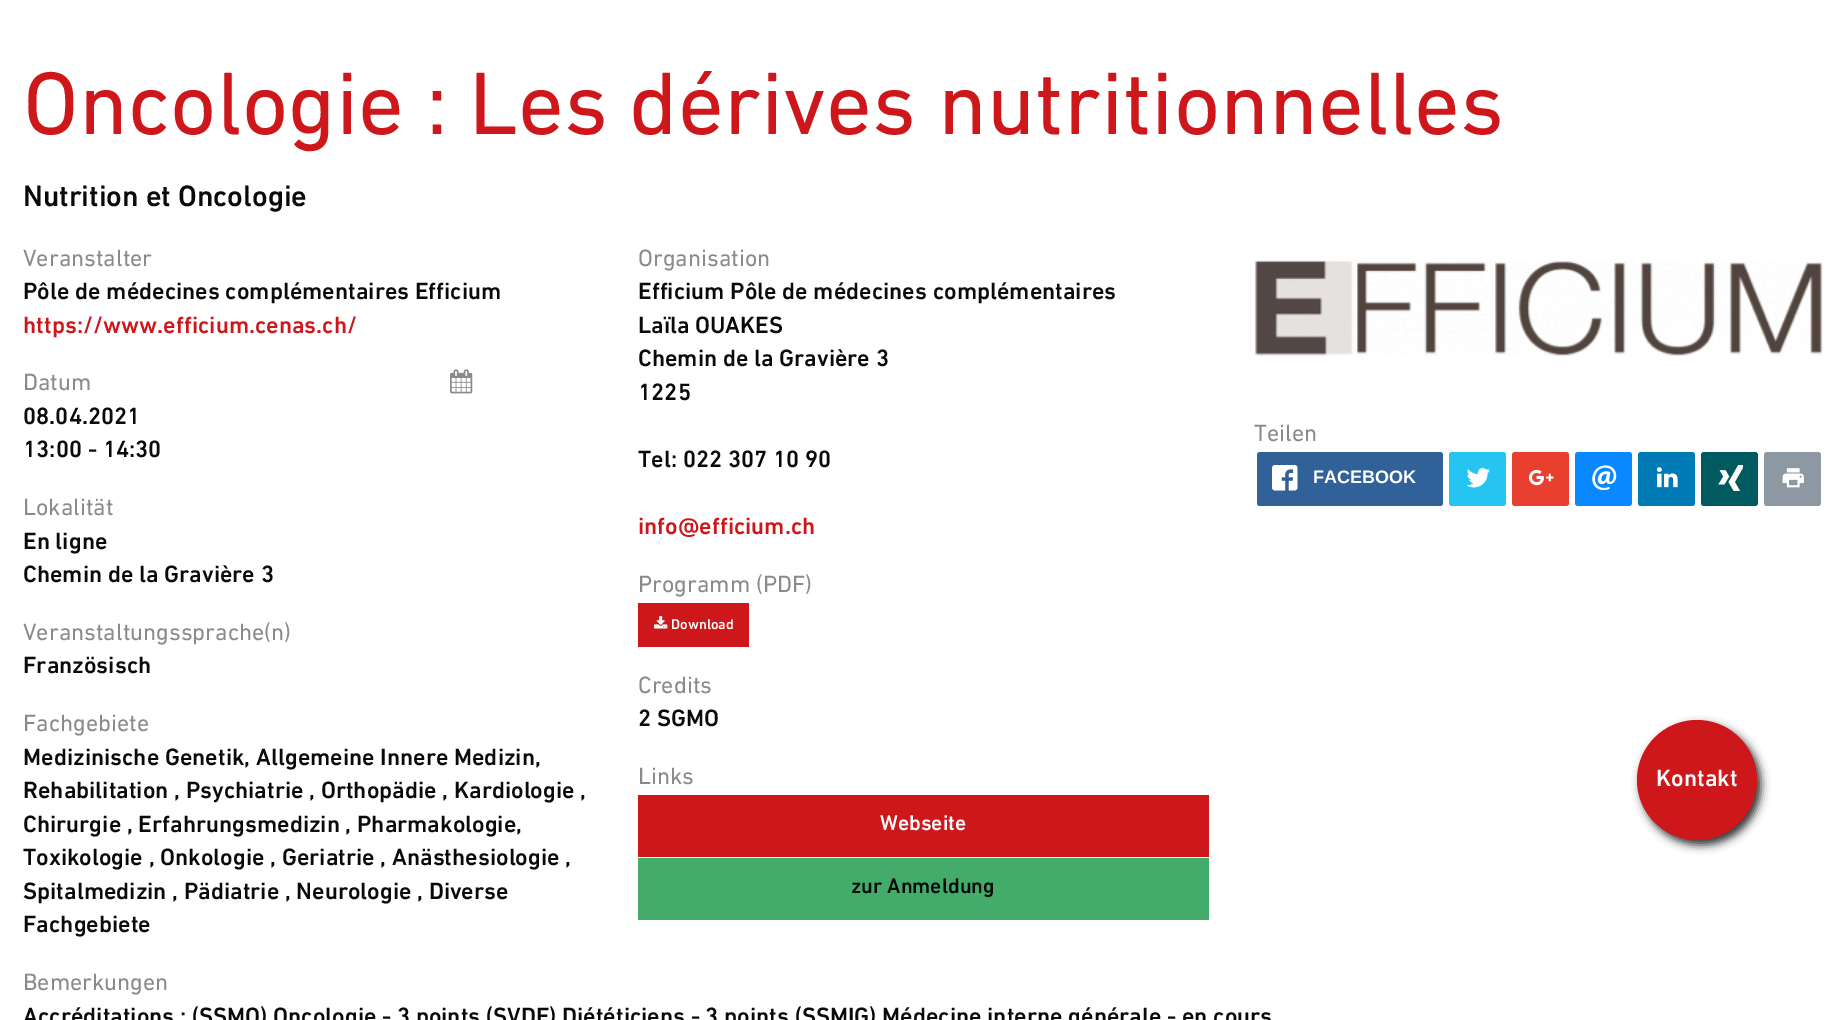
%!PS
<< /PageSize [1846 1020] /PageUsesTransparency true >> setpagedevice
/rgb { dup -16 bitshift 255 div exch dup -8 bitshift 255 and 255 div exch 255 and 255 div setrgbcolor } def
/font { [ exch dup neg 0 0 3 -1 roll 0 0 ] selectfont } def
/text { moveto show } def
/alpha { dup .setfillconstantalpha .setstrokeconstantalpha } def
/circle { newpath 0 360 arc closepath } def
/roundrect { 5 dict begin { /r /h /w /y /x } { exch def } forall
  x r add y moveto x w add y 2 copy h add r arct x w add y h add x 1 index r arct
  x y h add x y r arct x y 2 copy exch w add exch r arct closepath end } def
/shadow { 12 dict begin { /a /b /q /h /w /y /x } { exch def } forall gsave /was 0 def
  9 -2 -9 { dup b mul 4 div /e exch def 1 sub .425 mul 2.718 exch exp 1 add a .99 .min exch div /now exch def
    1 1 now sub 1 was sub div sub alpha /was now def
    w h .min e 2 mul add 0 gt { x e sub y e sub w e 2 mul add h e 2 mul add
      q e add b .6 mul add w h .min 2 div e add .min 0 .max roundrect fill } if } for grestore end } def
/picture { 5 dict begin { /h /w /y /x /name } { exch def } forall
  gsave x y translate w h scale
  w h 8 [w 0 0 h 0 0] name (r) file false 3 colorimage grestore end } def
0 .pushpdf14devicefilter
0 1020 translate 1 -1 scale
4 setmiterlimit
/s1 { /DIN-Regular 90 font 16#CD171A rgb } def
/s2 { /DIN-Medium 30 font 16#0A0A0A rgb } def
/s3 { /DIN-Regular 24 font 16#8A8A8A rgb } def
/s4 { /DIN-Medium 24 font 16#0A0A0A rgb } def
/s5 { /DIN-Medium 24 font 16#CD171A rgb } def
/s6 { /DIN-Medium 14.5 font 16#FEFEFE rgb } def
/s7 { /DIN-Medium 21.5 font 16#FEFEFE rgb } def
/s8 { /DIN-Medium 21.5 font 16#0A0A0A rgb } def
/s9 { /LiberationSans-Bold 18 font 16#FEFEFE rgb } def
/s10 { /DIN-Medium 24 font 16#FEFEFE rgb } def
16#FFFFFF rgb
0 0 1846 1020 rectfill
s1
(Oncologie : Les dérives nutritionnelles) 23 134 text
s2
(Nutrition et Oncologie) 23 206 text
s3
(Veranstalter) 23 266 text
s4
(Pôle de médecines complémentaires Efficium) 23 299 text
s5
(https://www.efficium.cenas.ch/) 23 333 text
s3
(Datum) 23 390 text
(pic1.raw) 450 369 23 25 picture
s4
(08.04.2021) 23 424 text
(13:00 - 14:30) 23 457 text
s3
(Lokalität) 23 515 text
s4
(En ligne) 23 549 text
(Chemin de la Gravière 3) 23 582 text
s3
(Veranstaltungssprache\(n\)) 23 640 text
s4
(Französisch) 23 673 text
s3
(Fachgebiete) 23 731 text
s4
(Medizinische Genetik, Allgemeine Innere Medizin,) 23 765 text
(Rehabilitation , Psychiatrie , Orthopädie , Kardiologie ,) 23 798 text
(Chirurgie , Erfahrungsmedizin , Pharmakologie,) 23 832 text
(Toxikologie , Onkologie , Geriatrie , Anästhesiologie ,) 23 865 text
(Spitalmedizin , Pädiatrie , Neurologie , Diverse) 23 899 text
(Fachgebiete) 23 932 text
s3
(Organisation) 638 266 text
s4
(Efficium Pôle de médecines complémentaires) 638 299 text
(Laïla OUAKES) 638 333 text
(Chemin de la Gravière 3) 638 366 text
(1225) 638 400 text
(Tel: 022 307 10 90) 638 467 text
s5
(info@efficium.ch) 638 534 text
s3
(Programm \(PDF\)) 638 592 text
16#CD171A rgb
638 603 111 44 rectfill
(pic2.raw) 654 616 14 13 picture
s6
(Download) 671 629 text
s3
(Credits) 638 693 text
s4
(2 SGMO) 638 726 text
s3
(Links) 638 784 text
16#CD171A rgb
638 795 571 62 rectfill
s7
(Webseite) 880 830 text
16#43AC6A rgb
638 858 571 62 rectfill
s8
(zur Anmeldung) 851 893 text
(pic3.raw) 1255 260 568 96 picture
s3
(Teilen) 1254 441 text
16#306199 rgb
1257 452 186 54 3 roundrect fill
(pic4.raw) 1272 465 26 26 picture
s9
(FACEBOOK) 1313 483 text
16#26C4F1 rgb
1449 452 57 54 3 roundrect fill
(pic5.raw) 1466 468 24 20 picture
16#E93F2E rgb
1512 452 57 54 3 roundrect fill
(pic6.raw) 1529 469 25 17 picture
16#0A88FF rgb
1575 452 57 54 3 roundrect fill
(pic7.raw) 1592 465 25 26 picture
16#007BB6 rgb
1638 452 57 54 3 roundrect fill
(pic8.raw) 1656 467 22 21 picture
16#005A5F rgb
1701 452 57 54 3 roundrect fill
(pic9.raw) 1718 465 25 26 picture
16#8D98A2 rgb
1764 452 57 54 3 roundrect fill
(pic10.raw) 1782 468 22 20 picture
s3
(Bemerkungen) 23 990 text
s4
(Accréditations : \(SSMO\) Oncologie - 3 points \(SVDE\) Diététiciens - 3 points \(SSMIG\) Médecine interne générale - en cours) 23 1024 text
16#303030 rgb
1641 725 120 120 60 4.5 1 shadow
16#CD171A rgb
1697 780 60 circle fill
s10
(Kontakt) 1656 786 text
.poppdf14devicefilter showpage
